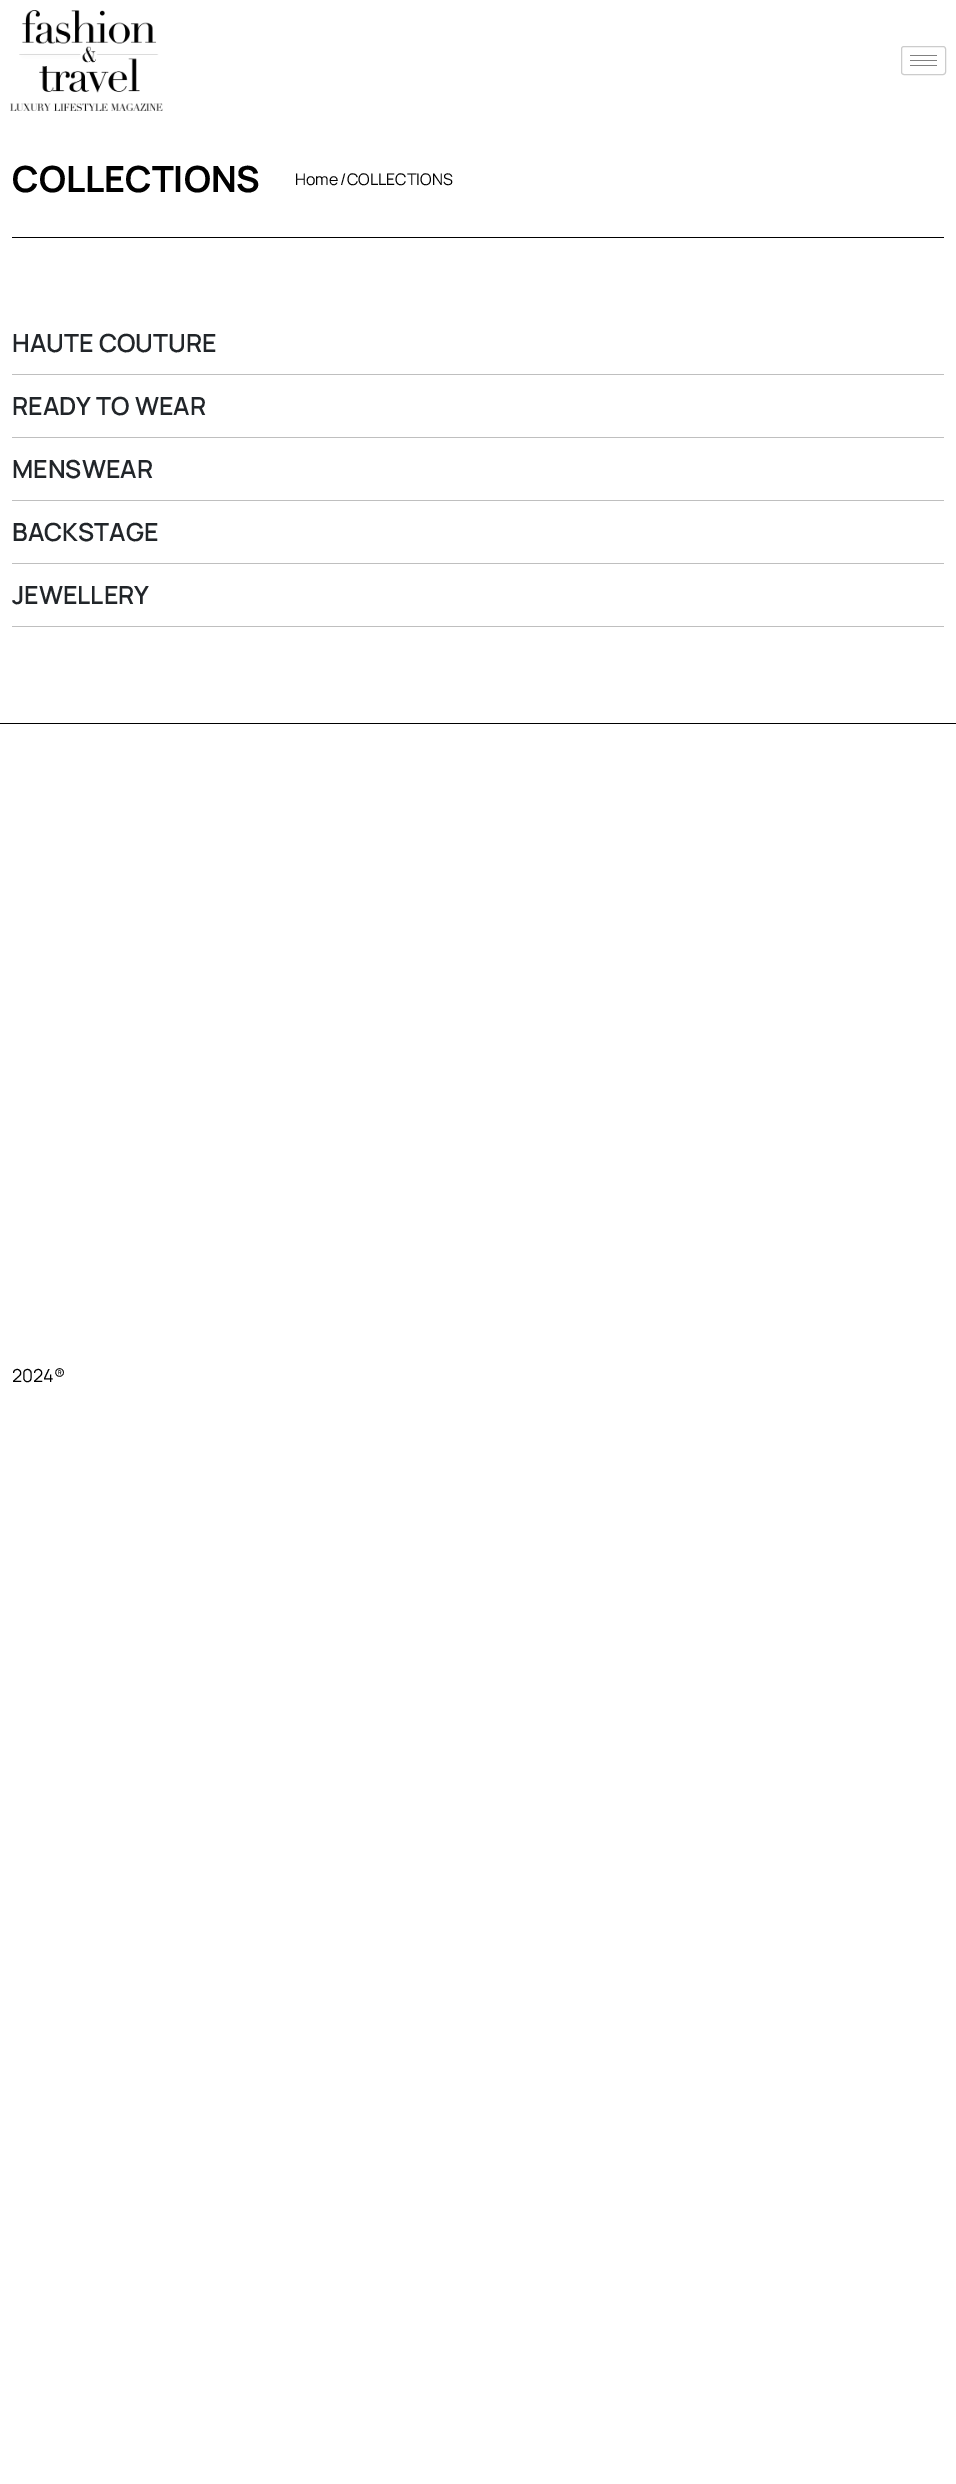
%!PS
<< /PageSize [956 2484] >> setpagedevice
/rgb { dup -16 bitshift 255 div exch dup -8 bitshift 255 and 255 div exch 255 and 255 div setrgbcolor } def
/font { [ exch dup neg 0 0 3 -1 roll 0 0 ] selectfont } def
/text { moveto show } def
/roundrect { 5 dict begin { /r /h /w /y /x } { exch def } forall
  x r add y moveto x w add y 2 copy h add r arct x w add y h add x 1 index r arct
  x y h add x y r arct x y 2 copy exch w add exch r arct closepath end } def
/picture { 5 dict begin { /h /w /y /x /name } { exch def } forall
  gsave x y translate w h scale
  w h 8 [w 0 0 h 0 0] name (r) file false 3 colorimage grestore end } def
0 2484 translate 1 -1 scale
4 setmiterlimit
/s1 { /Manrope-Bold 36 font 16#000000 rgb } def
/s2 { /Manrope-Regular 16 font 16#000000 rgb } def
/s3 { /Manrope-SemiBold 25 font 16#212529 rgb } def
/s4 { /Manrope-Regular 18 font 16#000000 rgb } def
16#FFFFFF rgb
0 0 956 2484 rectfill
(pic1.raw) 10 10 153 101 picture
16#CCCCCC rgb
901.5 46.5 44 28 2.5 roundrect stroke
16#808080 rgb
910 55 27 1 rectfill
910 60 27 1 rectfill
910 65 27 1 rectfill
16#000000 rgb
12 237 932 1 rectfill
s1
(COLLECTIONS) 12 192 text
s2
(Home) 295 185 text
(/) 340 185 text
(COLLECTIONS) 347 185 text
s3
(HAUTE COUTURE) 12 352 text
16#BFBFBF rgb
12 374 932 1 rectfill
s3
(READY TO WEAR) 12 415 text
16#BFBFBF rgb
12 437 932 1 rectfill
s3
(MENSWEAR) 12 478 text
16#BFBFBF rgb
12 500 932 1 rectfill
s3
(BACKSTAGE) 12 541 text
16#BFBFBF rgb
12 563 932 1 rectfill
s3
(JEWELLERY) 12 604 text
16#BFBFBF rgb
12 626 932 1 rectfill
16#000000 rgb
0 723 956 1 rectfill
s4
(2024®) 12 1382 text
showpage
